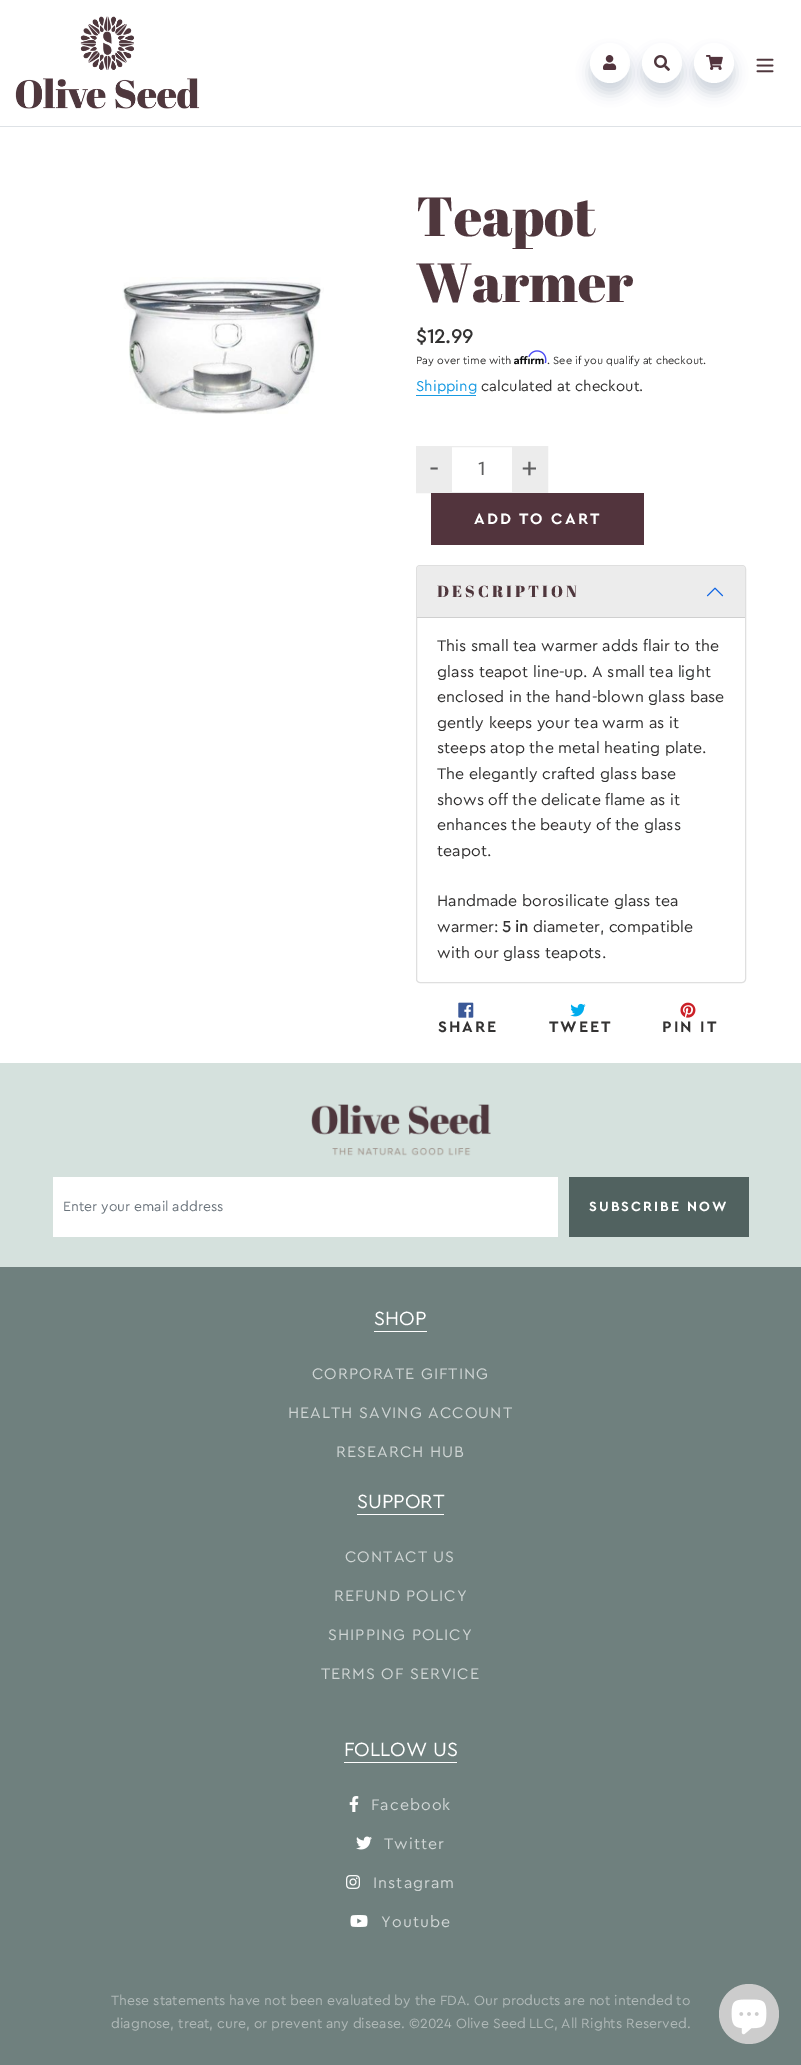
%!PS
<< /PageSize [801 2065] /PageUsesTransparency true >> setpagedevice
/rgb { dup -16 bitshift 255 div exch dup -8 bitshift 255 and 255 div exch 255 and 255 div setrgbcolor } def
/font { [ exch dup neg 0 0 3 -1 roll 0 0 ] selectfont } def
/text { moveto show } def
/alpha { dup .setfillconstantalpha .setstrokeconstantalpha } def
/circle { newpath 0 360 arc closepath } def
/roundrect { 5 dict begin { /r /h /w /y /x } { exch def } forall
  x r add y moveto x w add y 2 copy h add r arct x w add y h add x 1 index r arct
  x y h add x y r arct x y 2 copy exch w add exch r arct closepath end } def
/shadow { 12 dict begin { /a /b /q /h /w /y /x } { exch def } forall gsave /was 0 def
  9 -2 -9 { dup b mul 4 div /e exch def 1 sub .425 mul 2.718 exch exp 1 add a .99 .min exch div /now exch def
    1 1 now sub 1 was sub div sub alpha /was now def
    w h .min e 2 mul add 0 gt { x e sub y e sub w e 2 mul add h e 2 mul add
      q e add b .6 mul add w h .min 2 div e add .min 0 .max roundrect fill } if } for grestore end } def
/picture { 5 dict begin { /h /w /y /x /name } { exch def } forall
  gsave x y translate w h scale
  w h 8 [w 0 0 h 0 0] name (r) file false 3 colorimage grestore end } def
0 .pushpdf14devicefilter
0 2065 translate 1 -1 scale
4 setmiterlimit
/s1 { /AbrilFatface-Regular 55 font 16#4F373D rgb } def
/s2 { /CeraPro-Bold 20 font 16#333232 rgb } def
/s3 { /CeraPro-Regular 11 font 16#333232 rgb } def
/s4 { /CeraPro-Regular 15 font 16#179AE2 rgb } def
/s5 { /CeraPro-Regular 15 font 16#333232 rgb } def
/s6 { /CeraPro-Regular 30 font 16#5E5E5F rgb } def
/s7 { /CeraPro-Regular 20 font 16#5E5E5F rgb } def
/s8 { /CeraPro-Regular 16 font 16#333232 rgb } def
/s9 { /CeraPro-Bold 16 font 16#333232 rgb } def
/s10 { /CeraPro-Regular 14 font 16#6C757D rgb } def
/s11 { /CeraPro-Regular 20 font 16#FFFFFF rgb } def
/s12 { /CeraPro-Regular 14 font 16#B0B9B8 rgb } def
16#FFFFFF rgb
0 0 801 2065 rectfill
16#DEE2E6 rgb
0 126 801 1 rectfill
(pic1.raw) 15 16 185 93 picture
16#142E5B rgb
590 53 40 40 20 6.5 0.2 shadow
16#FFFFFF rgb
610 63 20 circle fill
(pic2.raw) 603 55 14 15 picture
16#142E5B rgb
642 53 40 40 20 6.5 0.2 shadow
16#FFFFFF rgb
662 63 20 circle fill
(pic3.raw) 654 55 16 16 picture
16#142E5B rgb
694 53 40 40 20 6.5 0.2 shadow
16#FFFFFF rgb
714 63 20 circle fill
(pic4.raw) 706 55 17 15 picture
(pic5.raw) 756 58 18 15 picture
(pic6.raw) 122 277 202 137 picture
s1
(Teapot) 416 236 text
(Warmer) 416 302 text
s2
($12.99) 416 343 text
s3
(Pay over time with) 416 364 text
(pic8.raw) 514 356 30 9 picture
(pic7.raw) 528 350 19 14 picture
(. See if you qualify at checkout.) 547 364 text
s4
(Shipping) 416 391 text
416 395 60 1 rectfill
s5
(calculated at checkout.) 481 391 text
16#ECECEC rgb
416.5 446.5 131 46 rectstroke
417 447 35 45 rectfill
s6
(-) 429 478 text
s7
(1) 478 475 text
16#ECECEC rgb
512 447 35 45 rectfill
s6
(+) 521 478 text
16#52343D rgb
431 493 213 52 rectfill
/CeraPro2-Bold 16 font
16#FFFFFF rgb
474 524 moveto 2 0 (ADD TO CART) ashow
16#DFDFDF rgb
416.5 565.5 329 417 3.5 roundrect stroke
16#ECECEC rgb
420 566 moveto 742 566 lineto 743.5 566 745 567.5 745 569 curveto 745 618 lineto 417 618 lineto 417 569 lineto 417 567.5 418.5 566 420 566 curveto closepath fill
16#CFCFCF rgb
417 617 328 1 rectfill
/AbrilFatface-Regular 16 font
16#4F373D rgb
437 597 moveto 3 0 (DESCRIPTION) ashow
(pic9.raw) 706 587 18 10 picture
s8
(This small tea warmer adds flair to the) 437 651 text
(glass teapot line-up. A small tea light) 437 677 text
(enclosed in the hand-blown glass base) 437 702 text
(gently keeps your tea warm as it) 437 728 text
(steeps atop the metal heating plate.) 437 753 text
(The elegantly crafted glass base) 437 779 text
(shows off the delicate flame as it) 437 805 text
(enhances the beauty of the glass) 437 830 text
(teapot.) 437 856 text
(Handmade borosilicate glass tea) 437 906 text
(warmer:) 437 932 text
s9
(5 in) 502 932 text
s8
(diameter, compatible) 533 932 text
(with our glass teapots.) 437 958 text
(pic10.raw) 458 1002 16 16 picture
/CeraPro2-Bold 16 font
438 1032 moveto 2 0 (SHARE) ashow
(pic11.raw) 570 1003 16 14 picture
549 1032 moveto 2 0 (TWEET) ashow
(pic12.raw) 680 1002 16 16 picture
662 1032 moveto 2 0 (PIN IT) ashow
16#D5E1DD rgb
0 1063 801 204 rectfill
(pic13.raw) 311 1104 180 52 picture
16#FFFFFF rgb
53 1177 505 60 rectfill
s10
(Enter your email address) 63 1211 text
16#516260 rgb
569 1177 180 60 rectfill
/CeraPro2-Bold 14 font
16#FFFFFF rgb
589 1211 moveto 2 0 (SUBSCRIBE NOW) ashow
16#6F807E rgb
0 1267 801 798 rectfill
16#FFFFFF rgb
374 1331 53 1 rectfill
s11
(SHOP) 374 1325 text
/CeraPro-Regular 16 font
16#CFD5D4 rgb
312 1379 moveto 1 0 (CORPORATE GIFTING) ashow
288 1418 moveto 1 0 (HEALTH SAVING ACCOUNT) ashow
336 1457 moveto 1 0 (RESEARCH HUB) ashow
16#FFFFFF rgb
357 1514 87 1 rectfill
s11
(SUPPORT) 357 1508 text
/CeraPro-Regular 16 font
16#CFD5D4 rgb
345 1562 moveto 1 0 (CONTACT US) ashow
334 1601 moveto 1 0 (REFUND POLICY) ashow
328 1640 moveto 1 0 (SHIPPING POLICY) ashow
321 1679 moveto 1 0 (TERMS OF SERVICE) ashow
16#FFFFFF rgb
344 1762 113 1 rectfill
s11
(FOLLOW US) 344 1756 text
(pic14.raw) 349 1796 10 16 picture
/CeraPro-Regular 16 font
16#CFD5D4 rgb
371 1810 moveto 1 0 (Facebook) ashow
(pic15.raw) 356 1836 16 14 picture
384 1849 moveto 1 0 (Twitter) ashow
(pic16.raw) 346 1875 14 14 picture
373 1888 moveto 1 0 (Instagram) ashow
(pic17.raw) 350 1915 18 12 picture
381 1927 moveto 1 0 (Youtube) ashow
s12
(These statements have not been evaluated by the FDA. Our products are not intended to) 111 2005 text
(diagnose, treat, cure, or prevent any disease. ©2024 Olive Seed LLC, All Rights Reserved.) 111 2028 text
16#CCCCCC rgb
749 2014 30 circle fill
(pic18.raw) 731 1999 36 36 picture
.poppdf14devicefilter showpage
